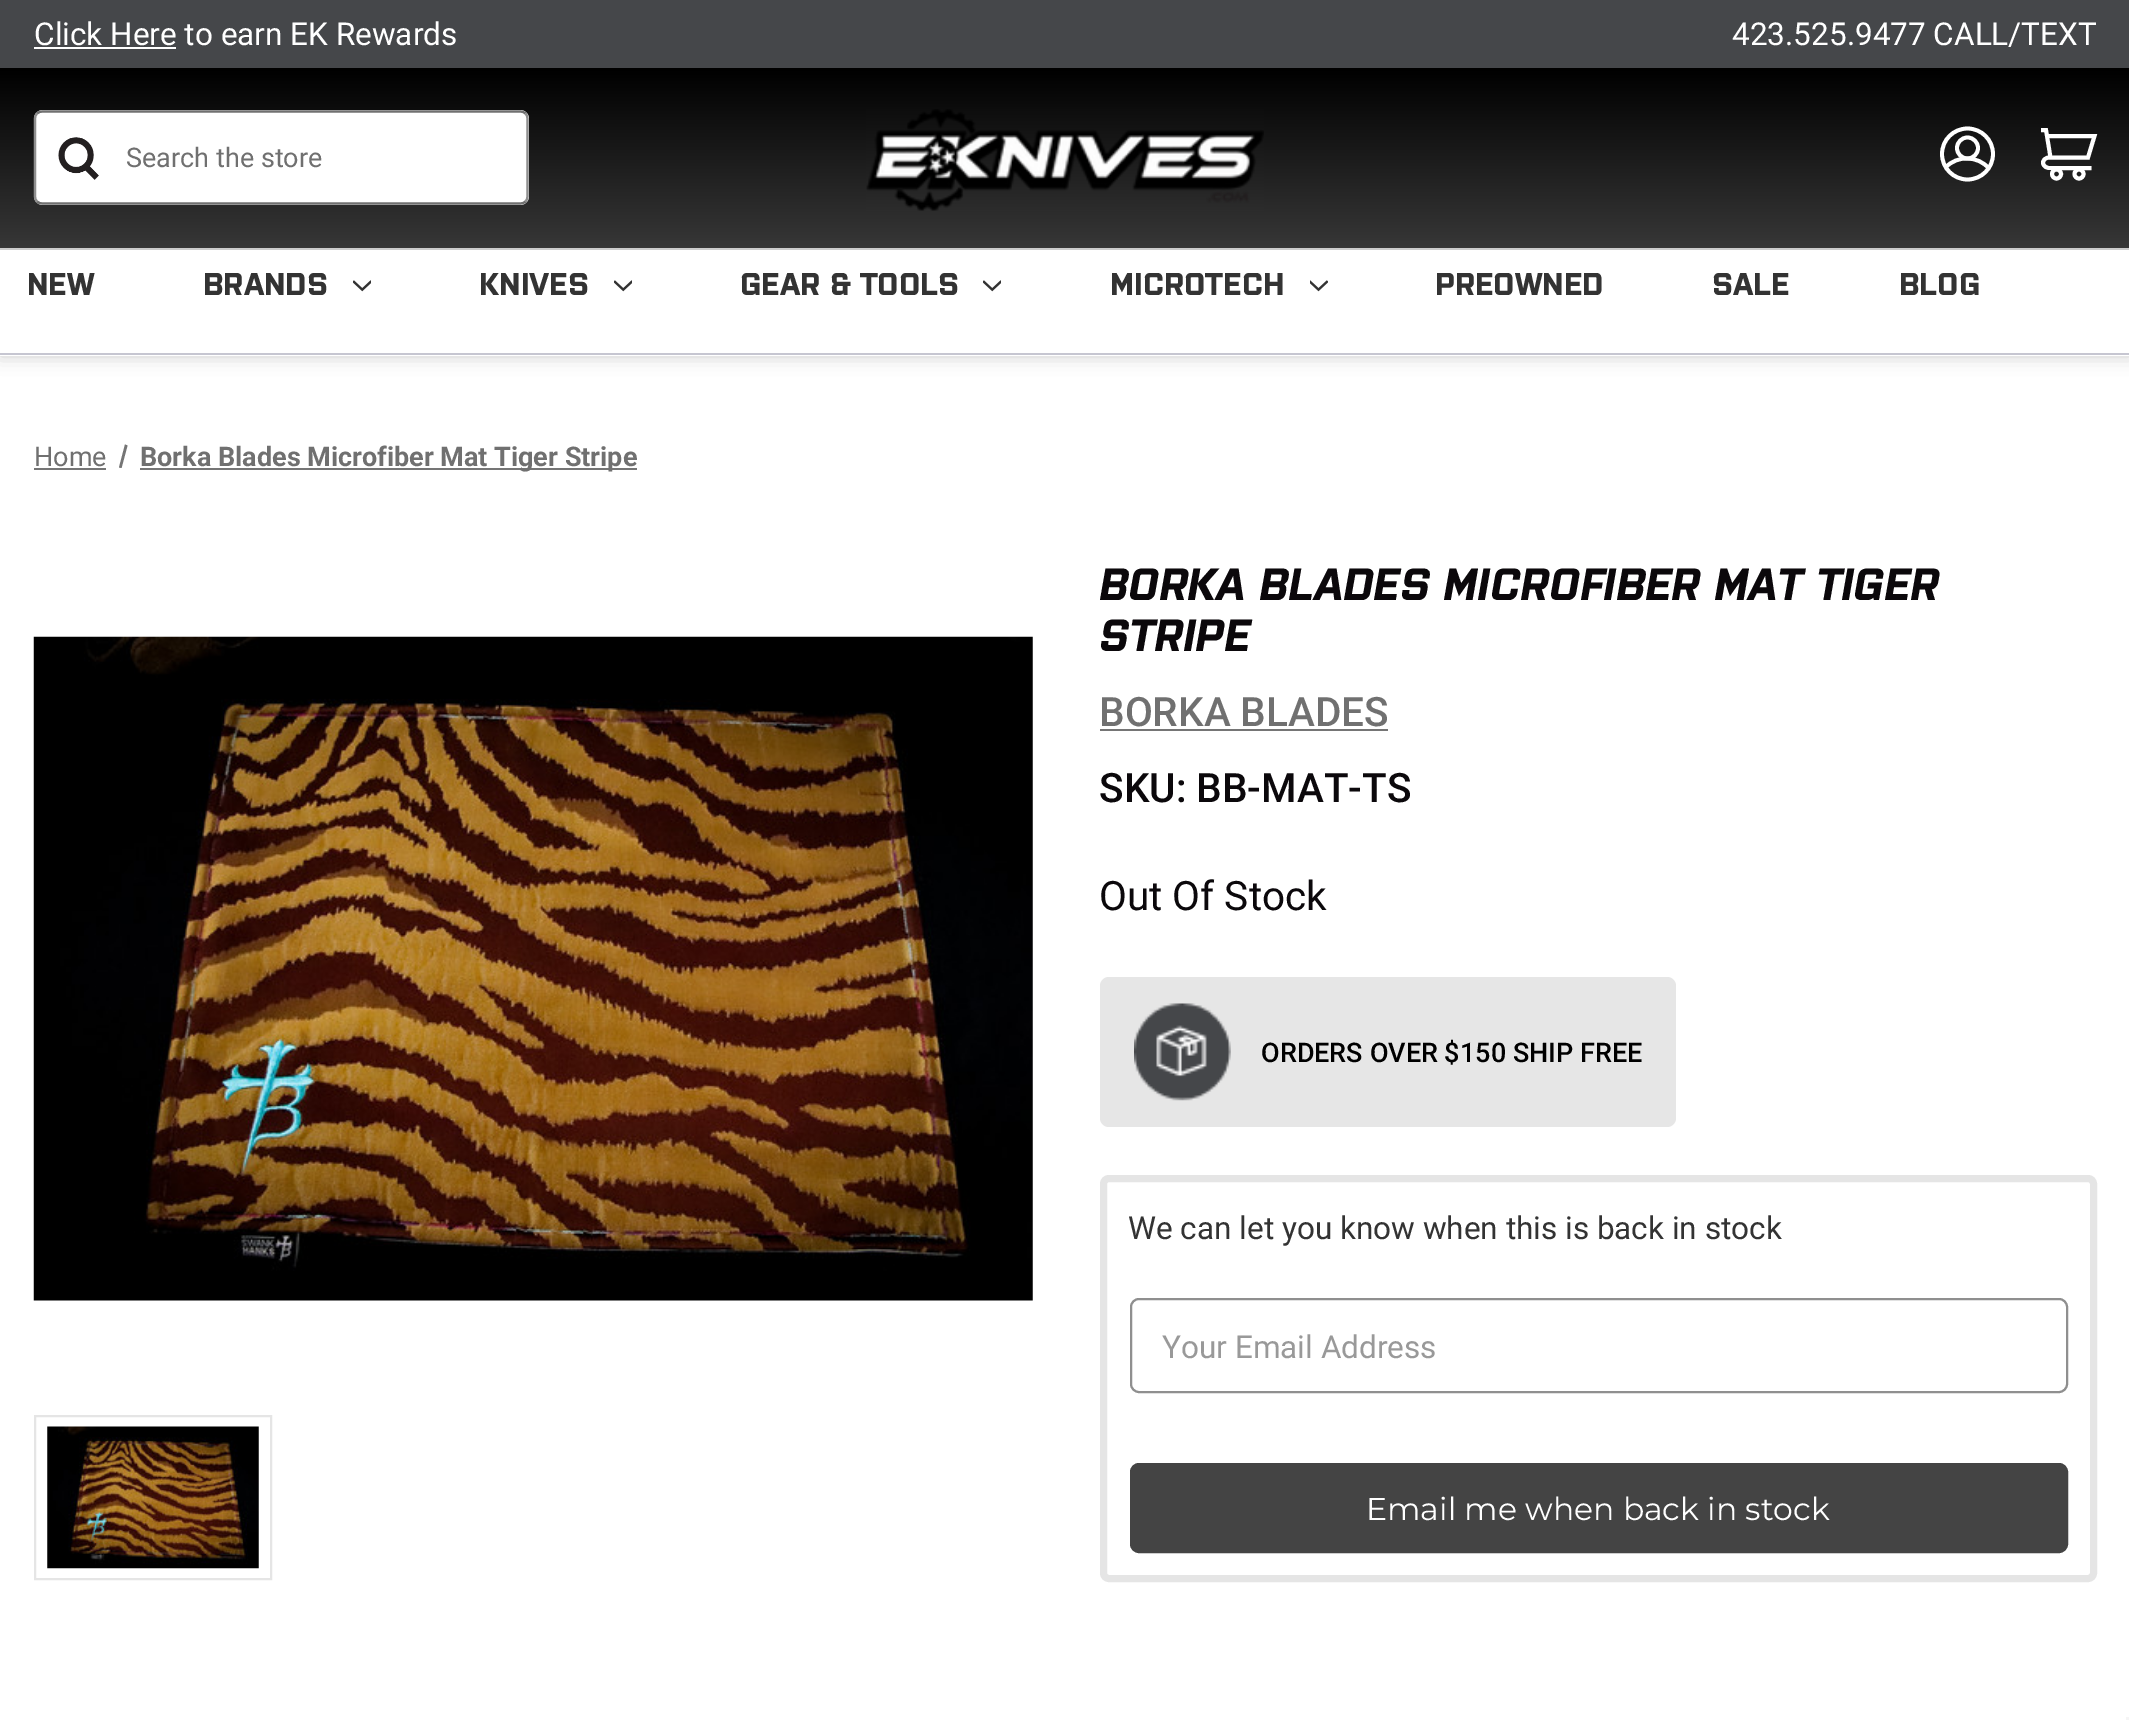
%!PS
<< /PageSize [2129 1720] /PageUsesTransparency true >> setpagedevice
/rgb { dup -16 bitshift 255 div exch dup -8 bitshift 255 and 255 div exch 255 and 255 div setrgbcolor } def
/font { [ exch dup neg 0 0 3 -1 roll 0 0 ] selectfont } def
/text { moveto show } def
/alpha { dup .setfillconstantalpha .setstrokeconstantalpha } def
/circle { newpath 0 360 arc closepath } def
/roundrect { 5 dict begin { /r /h /w /y /x } { exch def } forall
  x r add y moveto x w add y 2 copy h add r arct x w add y h add x 1 index r arct
  x y h add x y r arct x y 2 copy exch w add exch r arct closepath end } def
/shadow { 12 dict begin { /a /b /q /h /w /y /x } { exch def } forall gsave /was 0 def
  9 -2 -9 { dup b mul 4 div /e exch def 1 sub .425 mul 2.718 exch exp 1 add a .99 .min exch div /now exch def
    1 1 now sub 1 was sub div sub alpha /was now def
    w h .min e 2 mul add 0 gt { x e sub y e sub w e 2 mul add h e 2 mul add
      q e add b .6 mul add w h .min 2 div e add .min 0 .max roundrect fill } if } for grestore end } def
/picture { 5 dict begin { /h /w /y /x /name } { exch def } forall
  gsave x y translate w h scale
  w h 8 [w 0 0 h 0 0] name (r) file false 3 colorimage grestore end } def
0 .pushpdf14devicefilter
0 1720 translate 1 -1 scale
4 setmiterlimit
/s1 { /Roboto-Regular 31.5 font 16#FFFFFF rgb } def
/s2 { /Roboto-Regular 27 font 16#707070 rgb } def
/s3 { /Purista-Bold 31.5 font 16#333333 rgb } def
/s4 { /Roboto-Bold 27 font 16#707070 rgb } def
/s5 { /Purista-BoldItalic 45 font 16#0B080B rgb } def
/s6 { /Roboto-Medium 40.5 font 16#707070 rgb } def
/s7 { /Roboto-Medium 40.5 font 16#0B080B rgb } def
/s8 { /Roboto-Regular 40.5 font 16#0B080B rgb } def
/s9 { /Roboto-Medium 27 font 16#000000 rgb } def
/s10 { /Roboto-Regular 31.5 font 16#333333 rgb } def
/s11 { /Roboto-Regular 31.5 font 16#999999 rgb } def
/s12 { /Montserrat-Regular 31.5 font 16#FFFFFF rgb } def
16#FFFFFF rgb
0 0 2129 1720 rectfill
16#000000 rgb
0 0 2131 356 0 9 0.2 shadow
16#FFFFFF rgb
0 250 2129 106 rectfill
16#C6C6D1 rgb
0 353 2129 2 rectfill
16#45474A rgb
0 0 2129 68 rectfill
s1
(Click Here to earn EK Rewards) 34 45 text
34 47 142 2 rectfill
(423.525.9477 CALL/TEXT) 1732 45 text
gsave 0 68 moveto 2129 68 lineto 2129 248 lineto 0 248 lineto closepath clip newpath
<< /ShadingType 2 /ColorSpace /DeviceRGB /Coords [1065 67 1065 248] /Extend [true true] /Function << /FunctionType 2 /Domain [0 1] /C0 [0 0 0] /C1 [0.216 0.216 0.216] /N 1 >> >> shfill grestore
16#CCCCCC rgb
0 248 2129 2 rectfill
16#FFFFFF rgb
34 110 495 95 9 roundrect fill
(pic1.raw) 58 137 41 43 picture
16#707070 rgb
2.2 setlinewidth
37 113.5 moveto 38.5 112 40.5 111.5 43 111.5 curveto 520 111.5 lineto 522 111.5 524 112 525.5 113.5 curveto stroke
16#8F8F8F rgb
525.5 113.5 moveto 527 115 527.5 117 527.5 119 curveto 527.5 196 lineto 527.5 198 527 200 525.5 201.5 curveto stroke
16#707070 rgb
525.5 201.5 moveto 524 203 522 203.5 520 203.5 curveto 43 203.5 lineto 40.5 203.5 38.5 203 37 201.5 curveto stroke
16#8F8F8F rgb
37 201.5 moveto 35.5 200 35 198 35 196 curveto 35 119 lineto 35 117 35.5 115 37 113.5 curveto stroke
s2
(Search the store) 126 167 text
(pic2.raw) 866 109 398 102 picture
16#FFFFFF rgb
3.8 setlinewidth
1967.5 154 25.5 circle stroke
1967.5 148 10.5 circle stroke
1945.5 167.5 moveto 1957 155 1978 155.5 1989 168.5 curveto stroke
3.9 setlinewidth
2041 130 moveto 2046 130 lineto 2050.5 157.5 lineto 2088 157.5 lineto 2094.5 136 lineto 2048 136 lineto 2050 157.5 moveto 2046 157 2041.5 160.5 2043.5 164.5 curveto 2045.5 169 2050.5 168 2055 168 curveto 2091.5 168 lineto stroke
2056.5 174 4.5 circle stroke
2079 174 4.5 circle stroke
s3
(NEW) 27 295 text
(BRANDS) 203 295 text
(pic3.raw) 353 280 18 12 picture
(KNIVES) 479 295 text
(pic3.raw) 614 280 18 12 picture
(GEAR & TOOLS) 740 295 text
(pic3.raw) 983 280 18 12 picture
(MICROTECH) 1110 295 text
(pic4.raw) 1310 280 18 12 picture
(PREOWNED) 1435 295 text
(SALE) 1712 295 text
(BLOG) 1899 295 text
s2
(Home) 34 466 text
16#757575 rgb
34 468 72 2 rectfill
125 444.5 moveto 127.5 445.5 lineto 121.5 468 lineto 119 467.5 lineto closepath fill
140 468 497 2 rectfill
s4
(Borka Blades Microfiber Mat Tiger Stripe) 140 466 text
(pic5.raw) 33 636 1000 665 picture
16#E5E5E5 rgb
2 setlinewidth
35 1416 236 163 rectstroke
(pic6.raw) 47 1426 212 143 picture
s5
(BORKA BLADES MICROFIBER MAT TIGER) 1099 600 text
(STRIPE) 1099 651 text
s6
(BORKA BLADES) 1099 726 text
16#757575 rgb
1100 729 288 2 rectfill
s7
(SKU: BB-MAT-TS) 1099 802 text
s8
(Out Of Stock) 1099 910 text
16#E6E6E6 rgb
1100 977 576 150 9 roundrect fill
(pic7.raw) 1134 1003 97 98 picture
s9
(ORDERS OVER $150 SHIP FREE) 1261 1062 text
16#E5E5E5 rgb
7 setlinewidth
1103.5 1178.5 990 400 5.5 roundrect stroke
s10
(We can let you know when this is back in stock) 1128 1239 text
16#8F8F8F rgb
2 setlinewidth
1131 1299 936 93 8 roundrect stroke
s11
(Your Email Address) 1162 1358 text
16#444444 rgb
1131 1464 936 88 8 roundrect gsave fill grestore
stroke
s12
(Email me when back in stock) 1366 1520 text
16#F5F5F5 rgb
2126 1717 3 3 rectfill
.poppdf14devicefilter showpage
